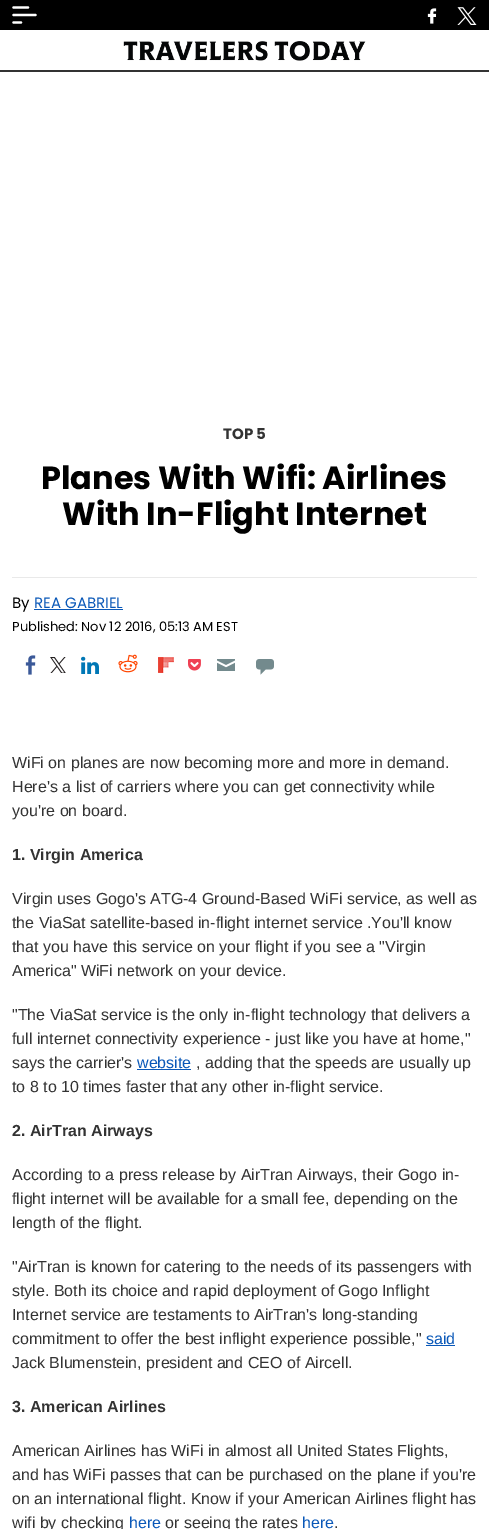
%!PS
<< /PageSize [489 1529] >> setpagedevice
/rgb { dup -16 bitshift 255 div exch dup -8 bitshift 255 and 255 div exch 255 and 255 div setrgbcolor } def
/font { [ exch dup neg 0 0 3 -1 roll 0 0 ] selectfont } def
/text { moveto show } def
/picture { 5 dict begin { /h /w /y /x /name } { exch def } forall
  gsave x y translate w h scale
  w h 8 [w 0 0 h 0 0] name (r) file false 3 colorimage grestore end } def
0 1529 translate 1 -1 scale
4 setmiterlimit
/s1 { /Poppins-Bold 15 font 16#333333 rgb } def
/s2 { /Poppins-Bold 32 font 16#000000 rgb } def
/s3 { /Poppins-Regular 15 font 16#000000 rgb } def
/s4 { /Poppins-Regular 15 font 16#0A58B8 rgb } def
/s5 { /Poppins-Regular 13 font 16#000000 rgb } def
/s6 { /LiberationSans-Regular 16 font 16#333333 rgb } def
/s7 { /LiberationSans-Bold 16 font 16#333333 rgb } def
/s8 { /LiberationSans-Regular 16 font 16#0A58B8 rgb } def
16#FFFFFF rgb
0 0 489 1529 rectfill
16#000000 rgb
0 0 489 30 rectfill
16#FFFFFF rgb
2.2 setlinewidth
1 setlinecap
13.5 7.5 moveto 28 7.5 lineto 13.5 22.5 moveto 21 22.5 lineto 13.5 15 moveto 35.5 15 lineto stroke
(pic1.raw) 427 8 10 16 picture
(pic2.raw) 457 7 20 18 picture
16#333333 rgb
0 70 489 2 rectfill
(pic3.raw) 123 41 243 20 picture
s1
(TOP 5) 223 439 text
s2
(Planes With Wifi: Airlines) 41 489 text
(With In-Flight Internet) 62 525 text
16#E9E9E9 rgb
12 577 465 1 rectfill
s3
(By) 12 608 text
s4
(REA GABRIEL) 34 608 text
34 609 89 1 rectfill
s5
(Published: Nov 12 2016, 05:13 AM EST) 12 631 text
(pic4.raw) 25 655 11 20 picture
(pic5.raw) 50 657 16 16 picture
(pic6.raw) 81 656 18 18 picture
(pic7.raw) 118 654 20 19 picture
(pic8.raw) 158 657 16 16 picture
(pic9.raw) 188 659 13 12 picture
(pic10.raw) 217 659 18 12 picture
(pic11.raw) 256 659 18 16 picture
s6
(WiFi on planes are now becoming more and more in demand.) 12 768 text
(Here's a list of carriers where you can get connectivity while) 12 792 text
(you're on board.) 12 816 text
s7
(1. Virgin America) 12 860 text
s6
(Virgin uses Gogo's ATG-4 Ground-Based WiFi service, as well as) 12 904 text
(the ViaSat satellite-based in-flight internet service .You'll know) 12 928 text
(that you have this service on your flight if you see a "Virgin) 12 952 text
(America" WiFi network on your device.) 12 976 text
("The ViaSat service is the only in-flight technology that delivers a) 12 1020 text
(full internet connectivity experience - just like you have at home,") 12 1044 text
(says the carrier's) 12 1068 text
s8
(website) 137 1068 text
137 1069 54 1 rectfill
s6
(, adding that the speeds are usually up) 196 1068 text
(to 8 to 10 times faster that any other in-flight service.) 12 1092 text
s7
(2. AirTran Airways) 12 1136 text
s6
(According to a press release by AirTran Airways, their Gogo in-) 12 1180 text
(flight internet will be available for a small fee, depending on the) 12 1204 text
(length of the flight.) 12 1228 text
("AirTran is known for catering to the needs of its passengers with) 12 1272 text
(style. Both its choice and rapid deployment of Gogo Inflight) 12 1296 text
(Internet service are testaments to AirTran's long-standing) 12 1320 text
(commitment to offer the best inflight experience possible,") 12 1344 text
s8
(said) 426 1344 text
426 1345 29 1 rectfill
s6
(Jack Blumenstein, president and CEO of Aircell.) 12 1368 text
s7
(3. American Airlines) 12 1412 text
s6
(American Airlines has WiFi in almost all United States Flights,) 12 1456 text
(and has WiFi passes that can be purchased on the plane if you're) 12 1480 text
(on an international flight. Know if your American Airlines flight has) 12 1504 text
(wifi by checking) 12 1528 text
s8
(here) 129 1528 text
s6
(or seeing the rates) 165 1528 text
s8
(here) 302 1528 text
s6
(.) 334 1528 text
showpage
